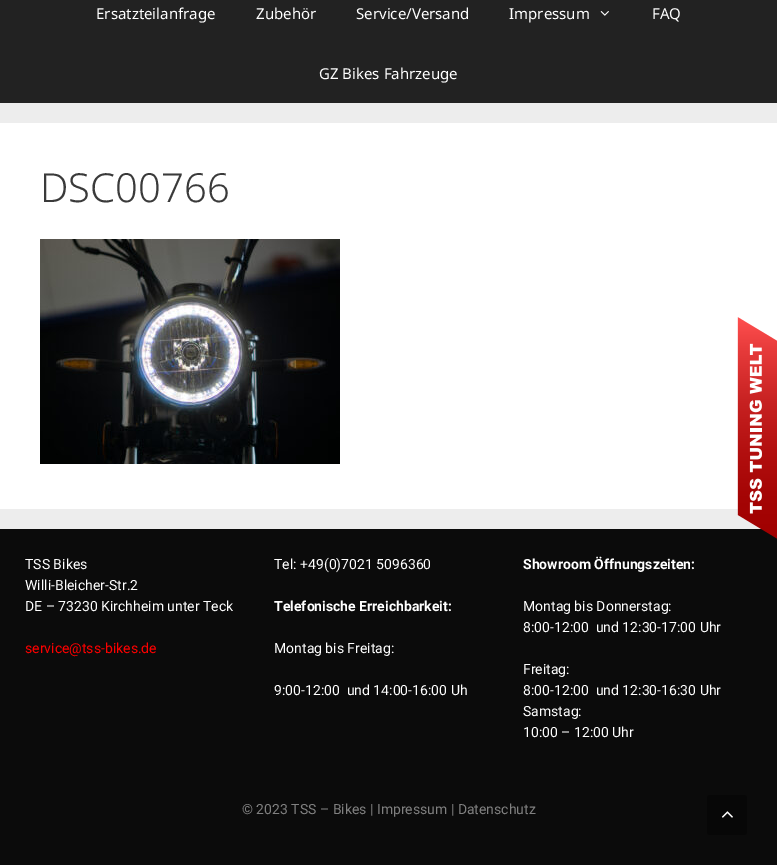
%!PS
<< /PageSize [777 865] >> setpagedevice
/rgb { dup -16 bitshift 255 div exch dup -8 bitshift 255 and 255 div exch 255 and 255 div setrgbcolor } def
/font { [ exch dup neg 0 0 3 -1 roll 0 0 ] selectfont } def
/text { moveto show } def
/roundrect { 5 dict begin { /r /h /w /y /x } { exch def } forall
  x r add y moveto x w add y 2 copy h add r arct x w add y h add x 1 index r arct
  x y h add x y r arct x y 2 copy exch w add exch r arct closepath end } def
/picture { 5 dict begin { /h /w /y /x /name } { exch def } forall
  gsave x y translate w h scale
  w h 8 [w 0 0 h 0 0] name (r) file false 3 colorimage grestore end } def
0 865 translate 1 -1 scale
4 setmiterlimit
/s1 { /NotoSans-Regular 15 font 16#FFFFFF rgb } def
/s2 { /NotoSans-Light 40 font 16#3A3A3A rgb } def
/s3 { /Roboto-Regular 14 font 16#FFFFFF rgb } def
/s4 { /Roboto-Regular 14 font 16#FF0000 rgb } def
/s5 { /Roboto-Bold 14 font 16#FFFFFF rgb } def
/s6 { /Roboto-Regular 14 font 16#808080 rgb } def
16#EDEDED rgb
0 0 777 865 rectfill
16#222222 rgb
0 0 777 103 rectfill
s1
(Ersatzteilanfrage) 96 19 text
(Zubehör) 256 19 text
(Service/Versand) 356 19 text
(Impressum) 509 19 text
(pic1.raw) 600 11 9 5 picture
(FAQ) 652 19 text
(GZ Bikes Fahrzeuge) 319 79 text
0 123 777 386 rectfill
s2
(DSC00766) 40 202 text
(pic2.raw) 40 239 300 225 picture
16#0B0B0B rgb
0 529 777 336 rectfill
(pic3.raw) 737 317 40 222 picture
s3
(TSS Bikes) 25 569 text
(Willi-Bleicher-Str.2) 25 590 text
(DE – 73230 Kirchheim unter Teck) 25 611 text
s4
(service@tss-bikes.de) 25 653 text
s3
(Tel: +49\(0\)7021 5096360) 274 569 text
s5
(Telefonische Erreichbarkeit:) 274 611 text
s3
(Montag bis Freitag:) 274 653 text
(9:00-12:00  und 14:00-16:00 Uh) 274 695 text
s5
(Showroom Öffnungszeiten:) 523 569 text
s3
(Montag bis Donnerstag:) 523 611 text
(8:00-12:00  und 12:30-17:00 Uhr) 523 632 text
(Freitag:) 523 674 text
(8:00-12:00  und 12:30-16:30 Uhr) 523 695 text
(Samstag:) 523 716 text
(10:00 – 12:00 Uhr) 523 737 text
s6
(© 2023 TSS – Bikes | Impressum | Datenschutz) 242 814 text
16#070707 rgb
707 795 40 40 3 roundrect fill
(pic4.raw) 721 811 12 7 picture
showpage
